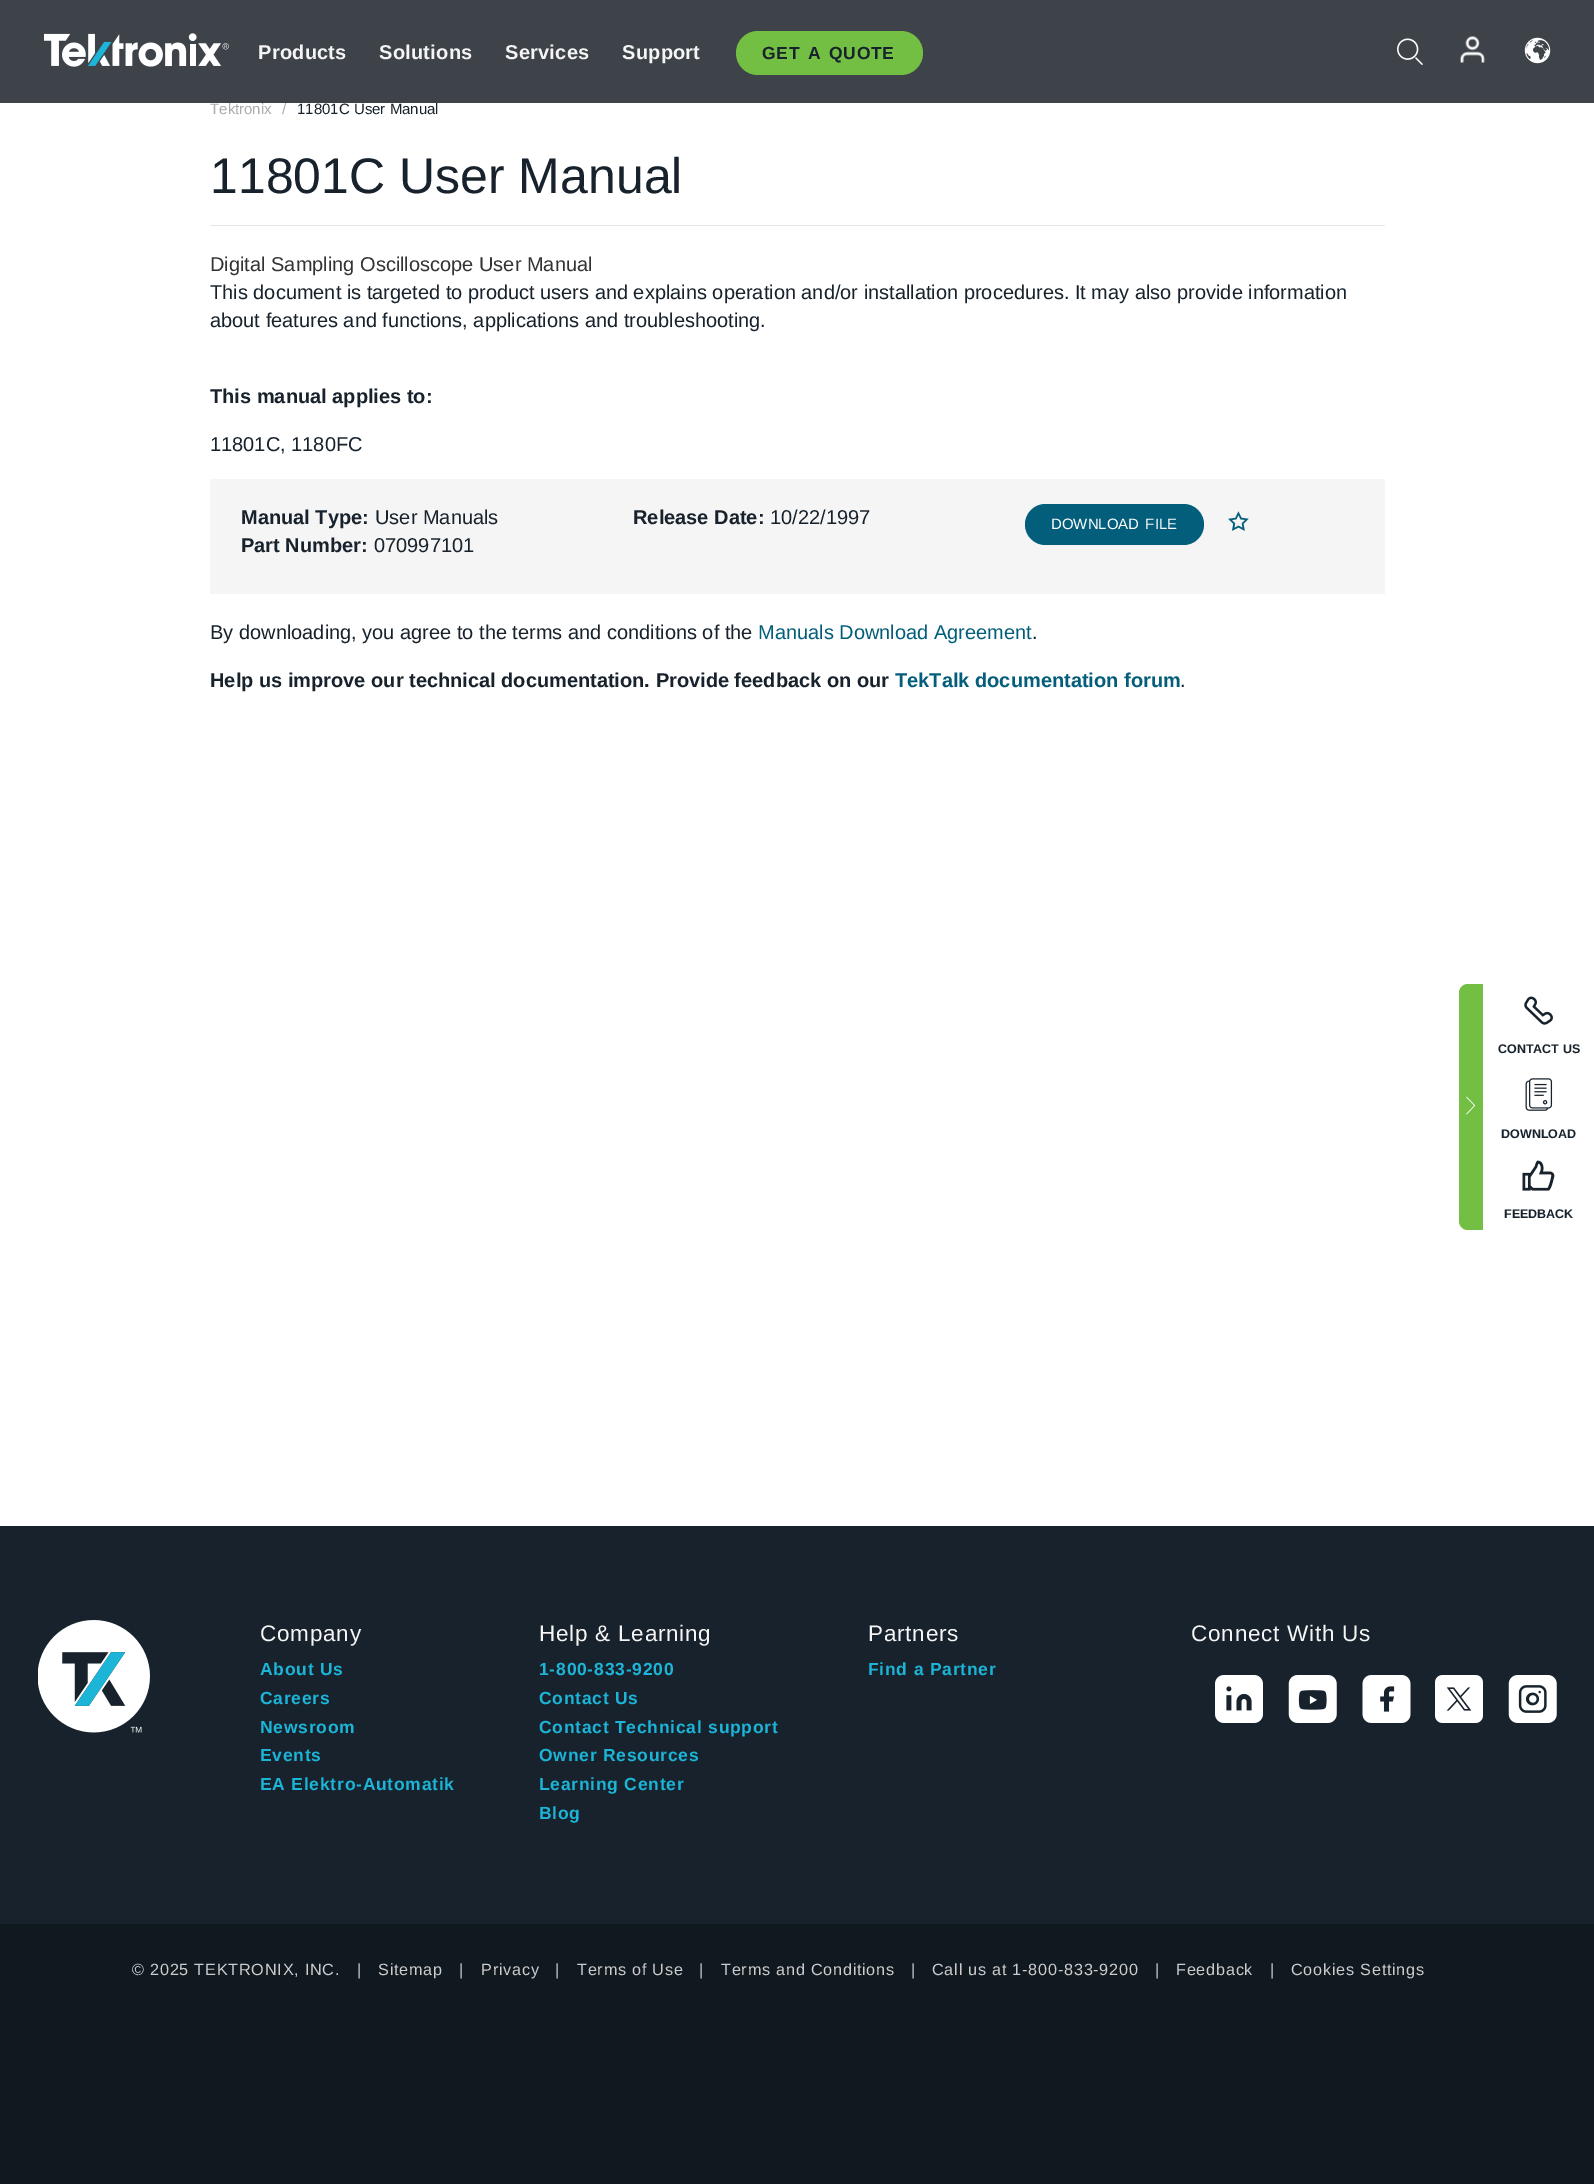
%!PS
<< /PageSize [1594 2184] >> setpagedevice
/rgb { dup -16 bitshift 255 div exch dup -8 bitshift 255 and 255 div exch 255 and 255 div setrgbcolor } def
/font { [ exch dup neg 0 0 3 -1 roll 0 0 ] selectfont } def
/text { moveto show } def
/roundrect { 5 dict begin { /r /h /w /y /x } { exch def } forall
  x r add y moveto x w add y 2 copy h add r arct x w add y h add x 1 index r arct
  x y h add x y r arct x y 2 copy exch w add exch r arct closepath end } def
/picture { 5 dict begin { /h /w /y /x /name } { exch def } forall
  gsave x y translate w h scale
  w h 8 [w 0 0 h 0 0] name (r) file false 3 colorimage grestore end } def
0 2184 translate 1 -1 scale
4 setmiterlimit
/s1 { /LiberationSans-Regular 15 font 16#ABABAB rgb } def
/s2 { /LiberationSans-Regular 15 font 16#17222C rgb } def
/s3 { /LiberationSans-Regular 50 font 16#17222C rgb } def
/s4 { /LiberationSans-Regular 20 font 16#333333 rgb } def
/s5 { /LiberationSans-Regular 20 font 16#17222C rgb } def
/s6 { /LiberationSans-Bold 20 font 16#17222C rgb } def
/s7 { /LiberationSans-Regular 20 font 16#035E7C rgb } def
/s8 { /LiberationSans-Bold 20 font 16#035E7C rgb } def
/s9 { /LiberationSans-Bold 12.5 font 16#17222C rgb } def
16#FFFFFF rgb
0 0 1594 2184 rectfill
16#3E434A rgb
0 0 1594 103 rectfill
(pic1.raw) 44 33 185 34 picture
/LiberationSans-Bold 20 font
16#F5F5F5 rgb
258 59 moveto 0.25 0 (Products) ashow
379 59 moveto 0.25 0 (Solutions) ashow
505 59 moveto 0.25 0 (Services) ashow
622 59 moveto 0.25 0 (Support) ashow
16#73BF44 rgb
736 31 187 44 22 roundrect fill
/LiberationSans-Bold 17.5 font
16#17222C rgb
762 59 moveto 2 0 32 0.75 0 (GET A QUOTE) awidthshow
(pic2.raw) 1397 38 26 27 picture
(pic3.raw) 1460 36 25 27 picture
(pic4.raw) 1524 37 27 27 picture
s1
(Tektronix) 210 114 text
(/) 282 114 text
s2
(11801C User Manual) 297 114 text
16#E5E5E5 rgb
210 225 1175 1 rectfill
s3
(11801C User Manual) 210 193 text
s4
(Digital Sampling Oscilloscope User Manual) 210 271 text
s5
(This document is targeted to product users and explains operation and/or installation procedures. It may also provide information) 210 299 text
(about features and functions, applications and troubleshooting.) 210 327 text
s6
(This manual applies to:) 210 403 text
s5
(11801C, 1180FC) 210 451 text
16#F5F5F5 rgb
210 479 1175 115 rectfill
s6
(Manual Type:) 241 524 text
s5
(User Manuals) 375 524 text
s6
(Part Number:) 241 552 text
s5
(070997101) 374 552 text
s6
(Release Date:) 633 524 text
s5
(10/22/1997) 770 524 text
16#035E7C rgb
1025 504 179 41 20.5 roundrect fill
/LiberationSans-Regular 15 font
16#FFFFFF rgb
1051 529 moveto 2 0 32 (DOWNLOAD FILE) widthshow
(pic5.raw) 1228 511 21 20 picture
s5
(By downloading, you agree to the terms and conditions of the) 210 639 text
s7
(Manuals Download Agreement) 758 639 text
s5
(.) 1032 639 text
s6
(Help us improve our technical documentation. Provide feedback on our) 210 687 text
s8
(TekTalk documentation forum) 895 687 text
s5
(.) 1180 687 text
16#73BF44 rgb
1468 984 moveto 1483 984 lineto 1483 1230 lineto 1468 1230 lineto 1463 1230 1459 1226 1459 1221 curveto 1459 993 lineto 1459 988 1463 984 1468 984 curveto closepath fill
(pic6.raw) 1466 1096 10 19 picture
(pic7.raw) 1524 996 29 29 picture
s9
(CONTACT US) 1498 1053 text
(pic8.raw) 1525 1078 28 33 picture
(DOWNLOAD) 1501 1138 text
(pic9.raw) 1522 1160 33 31 picture
(FEEDBACK) 1504 1218 text
0 1526 1594 398 rectfill
(pic10.raw) 38 1620 112 113 picture
/LiberationSans-Regular 22.5 font
16#F5F5F5 rgb
260 1641 moveto 0.75 0 (Company) ashow
/LiberationSans-Bold 17.5 font
16#1CB5D8 rgb
260 1675 moveto 0.75 0 (About Us) ashow
260 1704 moveto 0.75 0 (Careers) ashow
260 1733 moveto 0.75 0 (Newsroom) ashow
260 1761 moveto 0.75 0 (Events) ashow
260 1790 moveto 0.75 0 (EA Elektro-Automatik) ashow
/LiberationSans-Regular 22.5 font
16#F5F5F5 rgb
539 1641 moveto 0.75 0 (Help & Learning) ashow
/LiberationSans-Bold 17.5 font
16#1CB5D8 rgb
539 1675 moveto 0.75 0 (1-800-833-9200) ashow
539 1704 moveto 0.75 0 (Contact Us) ashow
539 1733 moveto 0.75 0 (Contact Technical support) ashow
539 1761 moveto 0.75 0 (Owner Resources) ashow
539 1790 moveto 0.75 0 (Learning Center) ashow
539 1819 moveto 0.75 0 (Blog) ashow
/LiberationSans-Regular 22.5 font
16#F5F5F5 rgb
868 1641 moveto 0.75 0 (Partners) ashow
/LiberationSans-Bold 17.5 font
16#1CB5D8 rgb
868 1675 moveto 0.75 0 (Find a Partner) ashow
/LiberationSans-Regular 22.5 font
16#F5F5F5 rgb
1191 1641 moveto 0.75 0 (Connect With Us) ashow
(pic11.raw) 1215 1675 48 48 picture
(pic12.raw) 1288 1675 49 48 picture
(pic13.raw) 1362 1675 49 48 picture
(pic14.raw) 1435 1675 48 48 picture
(pic15.raw) 1508 1675 49 48 picture
16#101920 rgb
0 1924 1594 260 rectfill
/LiberationSans-Regular 16.25 font
16#CCCCCC rgb
132 1975 moveto 0.75 0 (© 2025 TEKTRONIX, INC.) ashow
357 1975 moveto 0.75 0 (|) ashow
378 1975 moveto 0.75 0 (Sitemap) ashow
459 1975 moveto 0.75 0 (|) ashow
481 1975 moveto 0.75 0 (Privacy) ashow
555 1975 moveto 0.75 0 (|) ashow
577 1975 moveto 0.75 0 (Terms of Use) ashow
699 1975 moveto 0.75 0 (|) ashow
721 1975 moveto 0.75 0 (Terms and Conditions) ashow
911 1975 moveto 0.75 0 (|) ashow
932 1975 moveto 0.75 0 (Call us at 1-800-833-9200) ashow
1155 1975 moveto 0.75 0 (|) ashow
1176 1975 moveto 0.75 0 (Feedback) ashow
1270 1975 moveto 0.75 0 (|) ashow
1291 1975 moveto 0.75 0 (Cookies Settings) ashow
showpage
